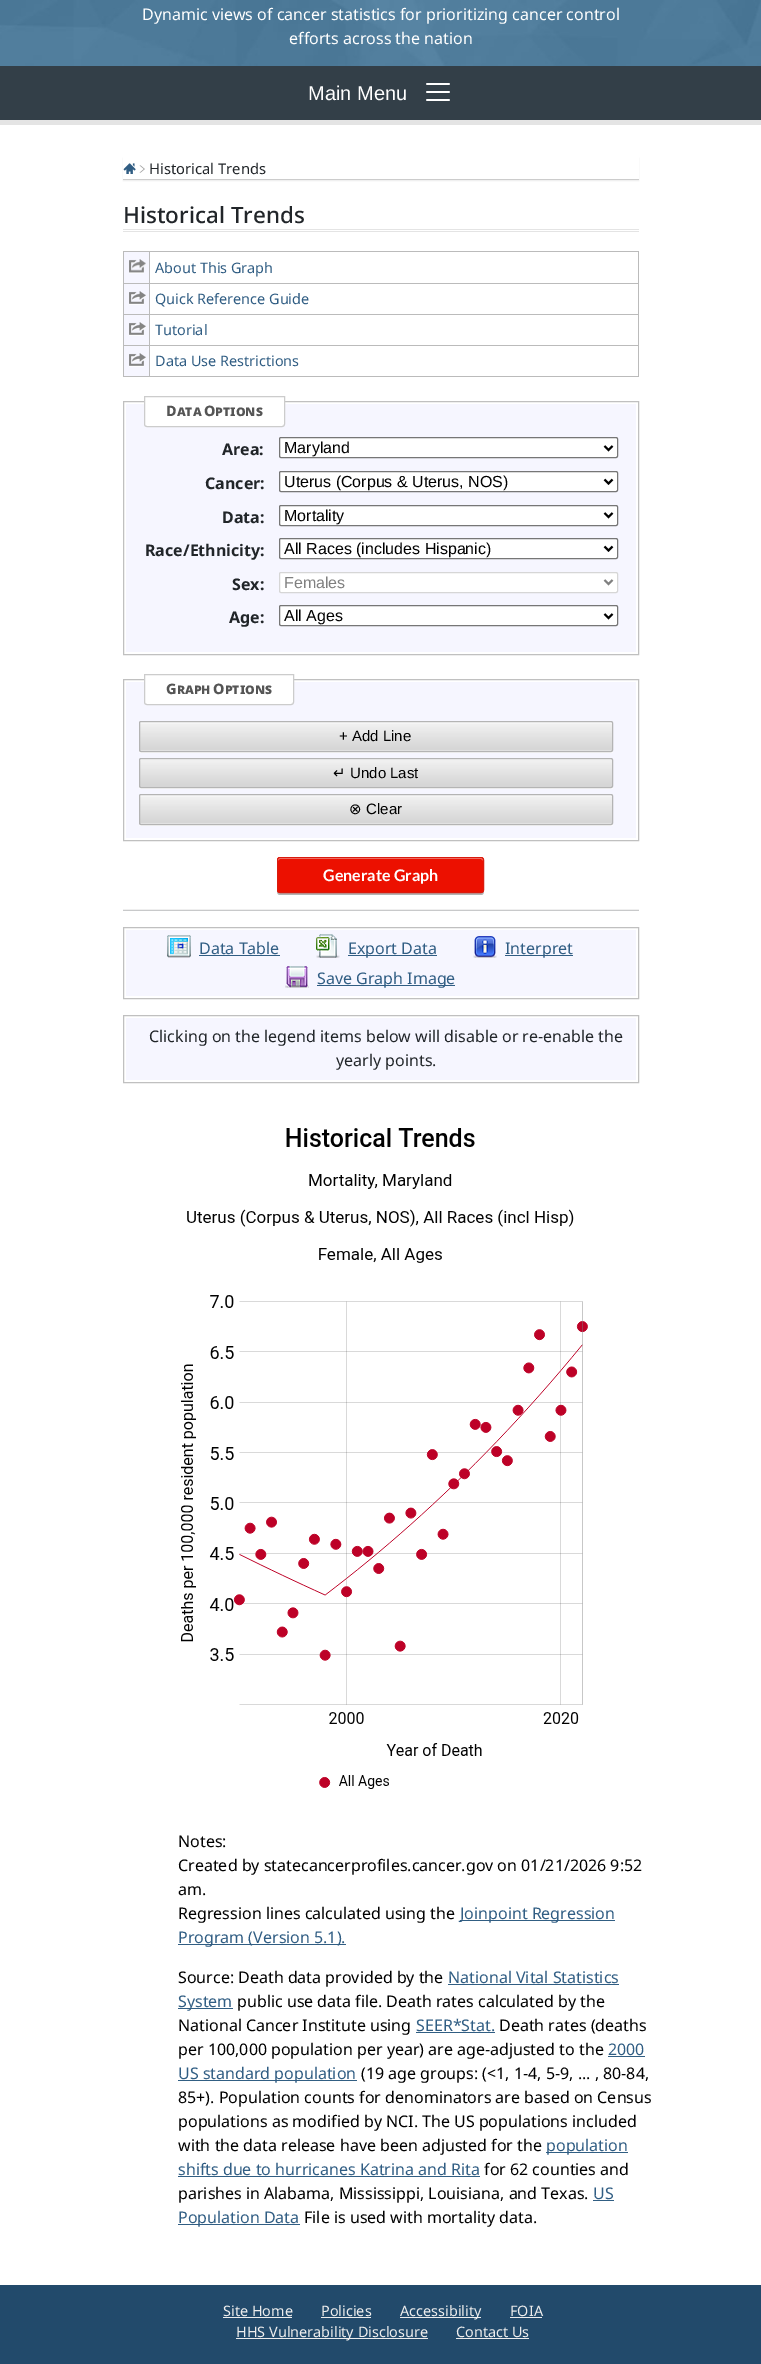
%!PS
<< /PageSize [761 2364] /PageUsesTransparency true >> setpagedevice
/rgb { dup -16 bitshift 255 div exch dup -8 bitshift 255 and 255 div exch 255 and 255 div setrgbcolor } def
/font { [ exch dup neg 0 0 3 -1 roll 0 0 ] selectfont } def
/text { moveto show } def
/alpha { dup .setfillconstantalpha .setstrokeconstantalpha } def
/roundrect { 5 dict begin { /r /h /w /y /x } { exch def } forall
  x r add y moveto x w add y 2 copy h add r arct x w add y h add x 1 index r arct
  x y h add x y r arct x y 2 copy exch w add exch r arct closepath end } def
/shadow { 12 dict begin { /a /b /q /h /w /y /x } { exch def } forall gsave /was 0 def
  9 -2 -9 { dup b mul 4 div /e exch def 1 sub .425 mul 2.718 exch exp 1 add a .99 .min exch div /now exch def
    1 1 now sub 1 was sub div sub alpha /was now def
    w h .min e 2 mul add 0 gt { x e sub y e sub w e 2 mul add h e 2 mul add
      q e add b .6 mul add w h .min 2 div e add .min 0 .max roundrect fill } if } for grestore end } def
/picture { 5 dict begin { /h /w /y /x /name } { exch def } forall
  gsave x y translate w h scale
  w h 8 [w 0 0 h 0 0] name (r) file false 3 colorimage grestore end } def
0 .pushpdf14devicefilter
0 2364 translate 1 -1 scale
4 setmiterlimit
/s1 { /NotoSans-Regular 16 font 16#FFFFFF rgb } def
/s2 { /LiberationSans-Regular 20 font 16#FFFFFF rgb } def
/s3 { /NotoSans-Regular 14.75 font 16#212529 rgb } def
/s4 { /NotoSans-Medium 22.5 font 16#212529 rgb } def
/s5 { /NotoSans-Regular 14.4 font 16#305D83 rgb } def
/s6 { /NotoSans-Bold 16 font 16#212529 rgb } def
/s7 { /LiberationSans-Regular 16 font 16#000000 rgb } def
/s8 { /LiberationSans-Regular 16 font 16#808080 rgb } def
/s9 { /LiberationSans-Regular 15 font 16#000000 rgb } def
/s10 { /DejaVuSans-Regular 15 font 16#000000 rgb } def
/s11 { /Lato-Bold 16 font 16#FFFFFF rgb } def
/s12 { /NotoSans-Regular 16 font 16#305D83 rgb } def
/s13 { /NotoSans-Regular 16 font 16#212529 rgb } def
/s14 { /NotoSans-Regular 16 font 16#000000 rgb } def
/s15 { /NotoSans-Regular 14.4 font 16#EDEDED rgb } def
16#FFFFFF rgb
0 0 761 2364 rectfill
(pic1.raw) 0 0 761 66 picture
s1
(Dynamic views of cancer statistics for prioritizing cancer control) 142 20 text
(efforts across the nation) 289 44 text
16#333F48 rgb
0 66 761 54 rectfill
16#E4E4E4 rgb
0 120 761 5 rectfill
s2
(Main Menu) 308 100 text
(pic2.raw) 426 83 24 18 picture
gsave
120 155 moveto 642 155 lineto 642 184 lineto 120 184 lineto closepath 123 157 moveto 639 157 lineto 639 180 lineto 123 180 lineto closepath eoclip newpath
16#EEEEEE rgb
123 158 516 23 0 0.5 1 shadow
grestore
16#CCCCCC rgb
123 179 516 1 rectfill
(pic3.raw) 123 163 13 11 picture
(pic4.raw) 139 165 6 8 picture
s3
(Historical Trends) 149 174 text
16#E4E4E4 rgb
123 229 516 1 rectfill
123 231 516 1 rectfill
s4
(Historical Trends) 123 223 text
16#F6F6FF rgb
124 252 25 124 rectfill
16#BBBBBB rgb
123 251 516 1 rectfill
638 251 1 126 rectfill
123 251 1 126 rectfill
124 283 514 1 rectfill
(pic5.raw) 129 259 17 15 picture
149 252 1 31 rectfill
s5
(About This Graph) 155 273 text
16#BBBBBB rgb
124 314 514 1 rectfill
(pic6.raw) 129 291 17 14 picture
149 284 1 30 rectfill
s5
(Quick Reference Guide) 155 304 text
16#BBBBBB rgb
124 345 514 1 rectfill
(pic6.raw) 129 322 17 14 picture
149 315 1 30 rectfill
s5
(Tutorial) 155 335 text
16#BBBBBB rgb
124 376 514 1 rectfill
(pic6.raw) 129 353 17 14 picture
149 346 1 30 rectfill
s5
(Data Use Restrictions) 155 366 text
16#F6F6FF rgb
126 404 510 248 rectfill
16#C0C0C0 rgb
123.5 401.5 515 253 rectstroke
16#FFFFFF rgb
144.5 396.5 moveto 284.5 396.5 lineto 284.5 424 lineto 284.5 425.5 283.5 426.5 282 426.5 curveto 147 426.5 lineto 145.5 426.5 144.5 425.5 144.5 424 curveto closepath gsave fill grestore
16#CCCCCC rgb
stroke
/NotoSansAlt-ExtraBold 14.4 font
16#555555 rgb
166 416 moveto -1 0 32 (Data Options) widthshow
s6
(Area:) 222 455 text
16#FFFFFF rgb
279.5 437.5 338 20 1.5 roundrect gsave fill grestore
16#767676 rgb
stroke
16#000000 rgb
2 setlinewidth
604.5 446 moveto 608.5 450 lineto 612.5 446 lineto stroke
s7
(Maryland) 284 453 text
s6
(Cancer:) 205 489 text
16#FFFFFF rgb
279.5 471.5 338 20 1.5 roundrect gsave fill grestore
16#767676 rgb
1 setlinewidth
stroke
16#000000 rgb
2 setlinewidth
604.5 479.5 moveto 608.5 483.5 lineto 612.5 479.5 lineto stroke
s7
(Uterus \(Corpus & Uterus, NOS\)) 284 487 text
s6
(Data:) 222 523 text
16#FFFFFF rgb
279.5 505.5 338 20 1.5 roundrect gsave fill grestore
16#767676 rgb
1 setlinewidth
stroke
16#000000 rgb
2 setlinewidth
604.5 513 moveto 608.5 517 lineto 612.5 513 lineto stroke
s7
(Mortality) 284 521 text
s6
(Race/Ethnicity:) 145 556 text
16#FFFFFF rgb
279.5 538.5 338 20 1.5 roundrect gsave fill grestore
16#767676 rgb
1 setlinewidth
stroke
16#000000 rgb
2 setlinewidth
604.5 546.5 moveto 608.5 550.5 lineto 612.5 546.5 lineto stroke
s7
(All Races \(includes Hispanic\)) 284 554 text
s6
(Sex:) 232 590 text
16#FFFFFF rgb
279.5 572.5 338 20 1.5 roundrect gsave fill grestore
16#D6D6D6 rgb
1 setlinewidth
stroke
16#808080 rgb
2 setlinewidth
604.5 580 moveto 608.5 584 lineto 612.5 580 lineto stroke
s8
(Females) 284 588 text
s6
(Age:) 229 623 text
16#FFFFFF rgb
279.5 605.5 338 20 1.5 roundrect gsave fill grestore
16#767676 rgb
1 setlinewidth
stroke
16#000000 rgb
2 setlinewidth
604.5 614 moveto 608.5 618 lineto 612.5 614 lineto stroke
s7
(All Ages) 284 621 text
16#F6F6FF rgb
126 682 510 156 rectfill
16#C0C0C0 rgb
1 setlinewidth
123.5 679.5 515 161 rectstroke
16#FFFFFF rgb
144.5 674.5 moveto 293.5 674.5 lineto 293.5 702 lineto 293.5 703.5 292.5 704.5 291 704.5 curveto 147 704.5 lineto 145.5 704.5 144.5 703.5 144.5 702 curveto closepath gsave fill grestore
16#CCCCCC rgb
stroke
/NotoSansAlt-ExtraBold 14.4 font
16#555555 rgb
166 694 moveto -1 0 32 (Graph Options) widthshow
16#FFFFFF rgb
139 750 moveto 139 752 lineto 141 753 lineto 611 753 lineto 613 753 613 751 613 750 curveto 613 751 612 752 611 752 curveto 141 752 lineto 140 752 139 751 139 750 curveto closepath fill
16#F5F5F5 rgb
139 721 474 31 2 roundrect fill
(pic7.raw) 139 724 474 27 picture
16#FAFAFA rgb
141 722 moveto 140 723 lineto 612 723 lineto 611 722 lineto closepath fill
16#B4B4B4 rgb
139.5 721.5 473 30 1.5 roundrect stroke
s9
(+ Add Line) 339 741 text
16#FFFFFF rgb
139 786 moveto 139 788 lineto 141 789 lineto 611 789 lineto 613 789 613 787 613 786 curveto 613 787 612 788 611 788 curveto 141 788 lineto 140 788 139 787 139 786 curveto closepath fill
(pic8.raw) 139 759 474 28 picture
16#F8F8F8 rgb
141 760 moveto 612 760 lineto 611 759 lineto 141 759 lineto 140 760 lineto 140 761 lineto closepath 612 786 moveto 612 787 lineto closepath eofill
16#B4B4B4 rgb
139.5 758.5 473 29 1.5 roundrect stroke
s10
(↵) 333 778 text
s9
(Undo Last) 350 778 text
16#FFFFFF rgb
139 823 moveto 139 825 lineto 141 826 lineto 611 826 lineto 613 826 613 824 613 823 curveto 613 824 612 825 611 825 curveto 141 825 lineto 140 825 139 824 139 823 curveto closepath fill
16#F5F5F5 rgb
139 794 474 31 2 roundrect fill
(pic7.raw) 139 797 474 27 picture
16#FAFAFA rgb
141 795 moveto 140 796 lineto 612 796 lineto 611 795 lineto closepath fill
16#B4B4B4 rgb
139.5 794.5 473 30 1.5 roundrect stroke
s10
(⊗) 349 814 text
s9
(Clear) 366 814 text
16#B3B3B3 rgb
277 890 moveto 277 892 277 895 280 895 curveto 481 895 lineto 484 895 484 892 484 890 curveto 484 892 483 893 481 893 curveto 280 893 lineto 278 892 lineto closepath fill
16#EC1000 rgb
277 857 207 36 3 roundrect fill
16#F68880 rgb
280 859 moveto 481 859 lineto 483 860 lineto 483 861 lineto 483 860 483 858 481 858 curveto 280 858 lineto 278 858 278 860 278 861 curveto 278 860 279 859 280 859 curveto closepath fill
16#D91B0E rgb
277.5 857.5 206 35 2.5 roundrect stroke
s11
(Generate Graph) 323 881 text
16#C8C9CA rgb
123 910 516 1 rectfill
16#EFEFEF rgb
123 909 516 1 rectfill
16#F6F6FF rgb
126 930 510 66 rectfill
16#C0C0C0 rgb
123.5 927.5 515 71 rectstroke
(pic9.raw) 167 935 24 23 picture
s12
(Data Table) 199 954 text
199 955 81 1 rectfill
(pic10.raw) 316 934 24 24 picture
348 955 89 1 rectfill
(Export Data) 348 954 text
(pic11.raw) 473 936 24 22 picture
505 955 68 1 rectfill
(Interpret) 505 954 text
(pic12.raw) 285 966 24 22 picture
317 985 138 1 rectfill
(Save Graph Image) 317 984 text
16#F6F6FF rgb
126 1018 510 62 rectfill
16#C0C0C0 rgb
123.5 1015.5 515 67 rectstroke
s13
(Clicking on the legend items below will disable or re-enable the) 149 1042 text
(yearly points.) 336 1066 text
(pic13.raw) 181 1128 407 628 picture
(pic14.raw) 319 1775 70 14 picture
s14
(Notes:) 178 1847 text
(Created by statecancerprofiles.cancer.gov on 01/21/2026 9:52) 178 1871 text
(am.) 178 1895 text
(Regression lines calculated using the) 178 1919 text
16#315E83 rgb
460 1920 155 1 rectfill
s12
(Joinpoint Regression) 460 1919 text
16#315E83 rgb
178 1944 168 1 rectfill
s12
(Program \(Version 5.1\).) 178 1943 text
s14
(Source: Death data provided by the) 178 1983 text
s12
(National Vital Statistics) 448 1983 text
16#315E83 rgb
448 1984 171 1 rectfill
178 2008 55 1 rectfill
s12
(System) 178 2007 text
s14
(public use data file. Death rates calculated by the) 237 2007 text
(National Cancer Institute using) 178 2031 text
s12
(SEER*Stat.) 416 2031 text
16#315E83 rgb
416 2032 79 1 rectfill
s14
(Death rates \(deaths) 499 2031 text
(per 100,000 population per year\) are age-adjusted to the) 178 2055 text
s12
(2000) 608 2055 text
16#315E83 rgb
608 2056 37 1 rectfill
178 2080 179 1 rectfill
s12
(US standard population) 178 2079 text
s14
(\(19 age groups: \(<1, 1-4, 5-9, ... , 80-84,) 361 2079 text
(85+\). Population counts for denominators are based on Census) 178 2103 text
(populations as modified by NCI. The US populations included) 178 2127 text
(with the data release have been adjusted for the) 178 2151 text
16#315E83 rgb
546 2152 82 1 rectfill
s12
(population) 546 2151 text
(shifts due to hurricanes Katrina and Rita) 178 2175 text
16#315E83 rgb
178 2176 302 1 rectfill
s14
(for 62 counties and) 484 2175 text
(parishes in Alabama, Mississippi, Louisiana, and Texas.) 178 2199 text
s12
(US) 593 2199 text
16#315E83 rgb
593 2200 21 1 rectfill
178 2224 122 1 rectfill
s12
(Population Data) 178 2223 text
s14
(File is used with mortality data.) 304 2223 text
16#224A6B rgb
0 2285 761 79 rectfill
s15
(Site Home) 223 2316 text
223 2317 69 1 rectfill
(Policies) 321 2316 text
321 2317 50 1 rectfill
400 2317 81 1 rectfill
(Accessibility) 400 2316 text
(FOIA) 510 2316 text
510 2317 32 1 rectfill
236 2338 192 1 rectfill
(HHS Vulnerability Disclosure) 236 2337 text
(Contact Us) 456 2337 text
456 2338 73 1 rectfill
.poppdf14devicefilter showpage
